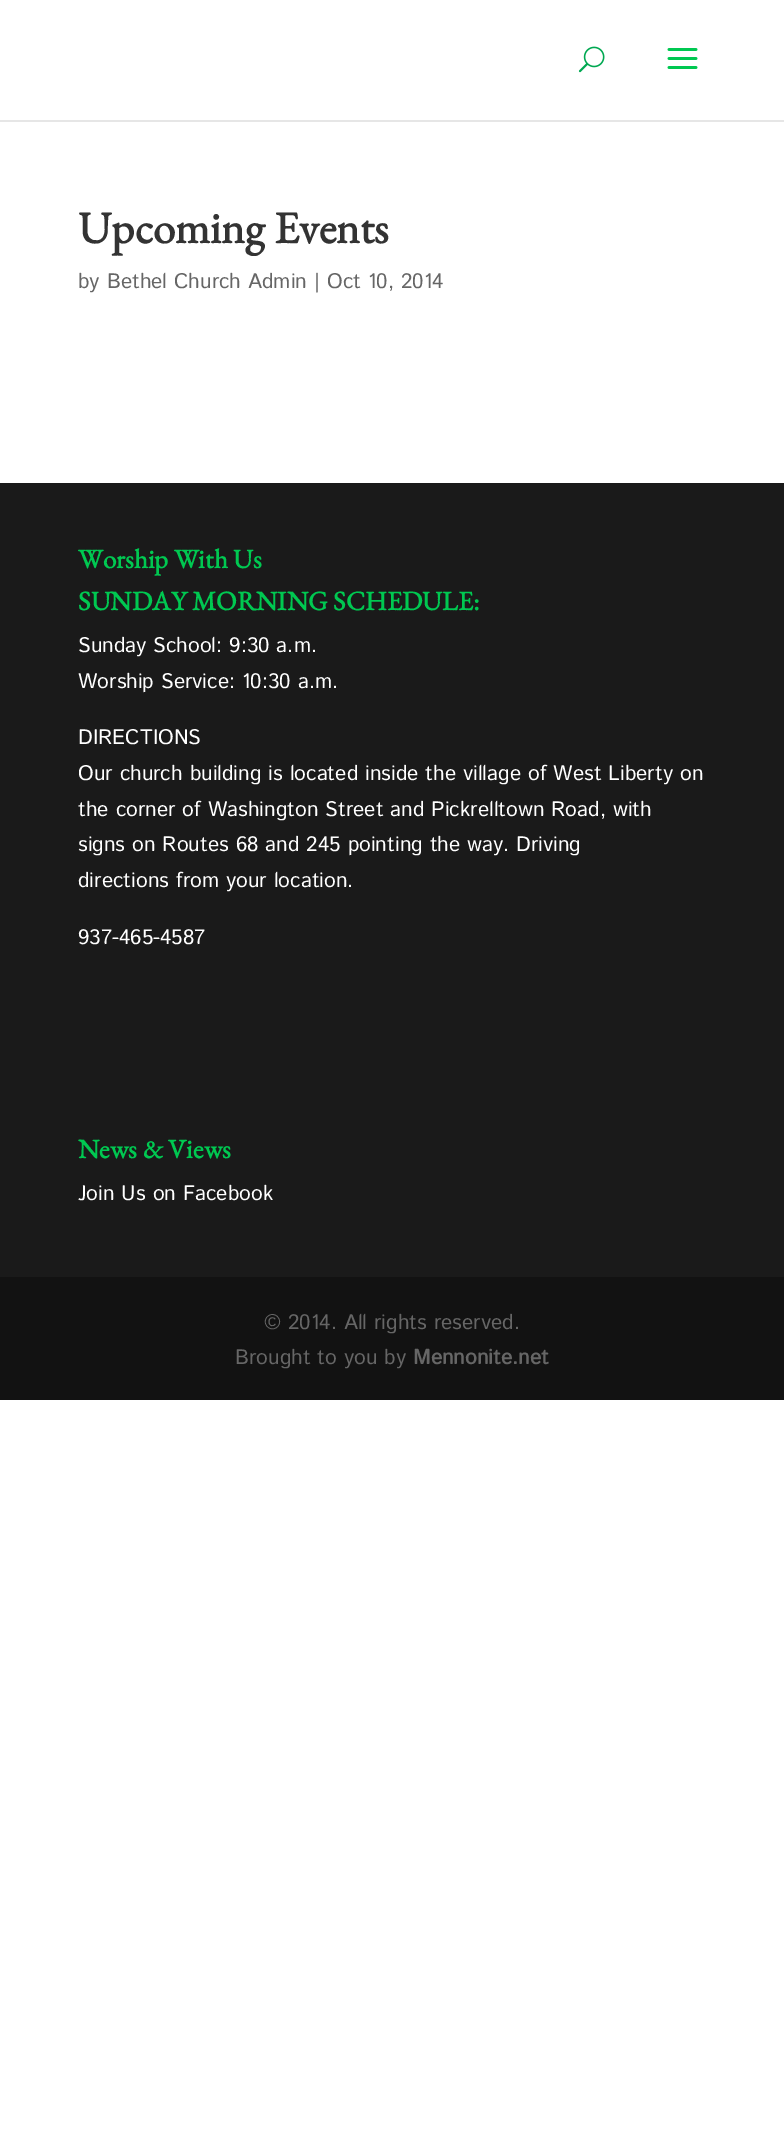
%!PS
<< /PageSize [784 2133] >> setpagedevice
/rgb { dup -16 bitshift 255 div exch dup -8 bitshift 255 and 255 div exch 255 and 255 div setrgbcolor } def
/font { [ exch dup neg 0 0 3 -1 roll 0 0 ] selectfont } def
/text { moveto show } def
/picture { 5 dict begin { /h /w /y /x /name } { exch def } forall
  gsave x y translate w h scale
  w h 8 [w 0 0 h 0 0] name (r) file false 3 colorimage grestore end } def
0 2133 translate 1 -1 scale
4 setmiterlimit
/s1 { /EBGaramond-Bold 45 font 16#333333 rgb } def
/s2 { /IstokWeb-Regular 21 font 16#666666 rgb } def
/s3 { /EBGaramond-Bold 27 font 16#00C851 rgb } def
/s4 { /IstokWeb-Regular 21 font 16#FFFFFF rgb } def
/s5 { /IstokWeb-Bold 21 font 16#666666 rgb } def
16#FFFFFF rgb
0 0 784 2133 rectfill
16#E6E6E6 rgb
0 120 moveto 0 122 lineto 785 122 lineto 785 2 lineto 784 2 lineto 784 120 lineto closepath fill
(pic1.raw) 578 46 27 27 picture
(pic2.raw) 667 48 31 21 picture
s1
(Upcoming Events) 78 243 text
s2
(by Bethel Church Admin | Oct 10, 2014) 78 288 text
16#1A1A1A rgb
0 483 784 794 rectfill
s3
(Worship With Us) 78 568 text
(SUNDAY MORNING SCHEDULE:) 78 610 text
s4
(Sunday School: 9:30 a.m.) 78 652 text
(Worship Service: 10:30 a.m.) 78 688 text
(DIRECTIONS) 78 744 text
(Our church building is located inside the village of West Liberty on) 78 780 text
(the corner of Washington Street and Pickrelltown Road, with) 78 816 text
(signs on Routes 68 and 245 pointing the way. Driving) 78 851 text
(directions from your location.) 78 887 text
(937-465-4587) 78 944 text
s3
(News & Views) 78 1158 text
s4
(Join Us on Facebook) 78 1200 text
16#121212 rgb
0 1277 784 123 rectfill
s2
(© 2014. All rights reserved.) 264 1329 text
(Brought to you by) 235 1364 text
s5
(Mennonite.net) 413 1364 text
showpage
